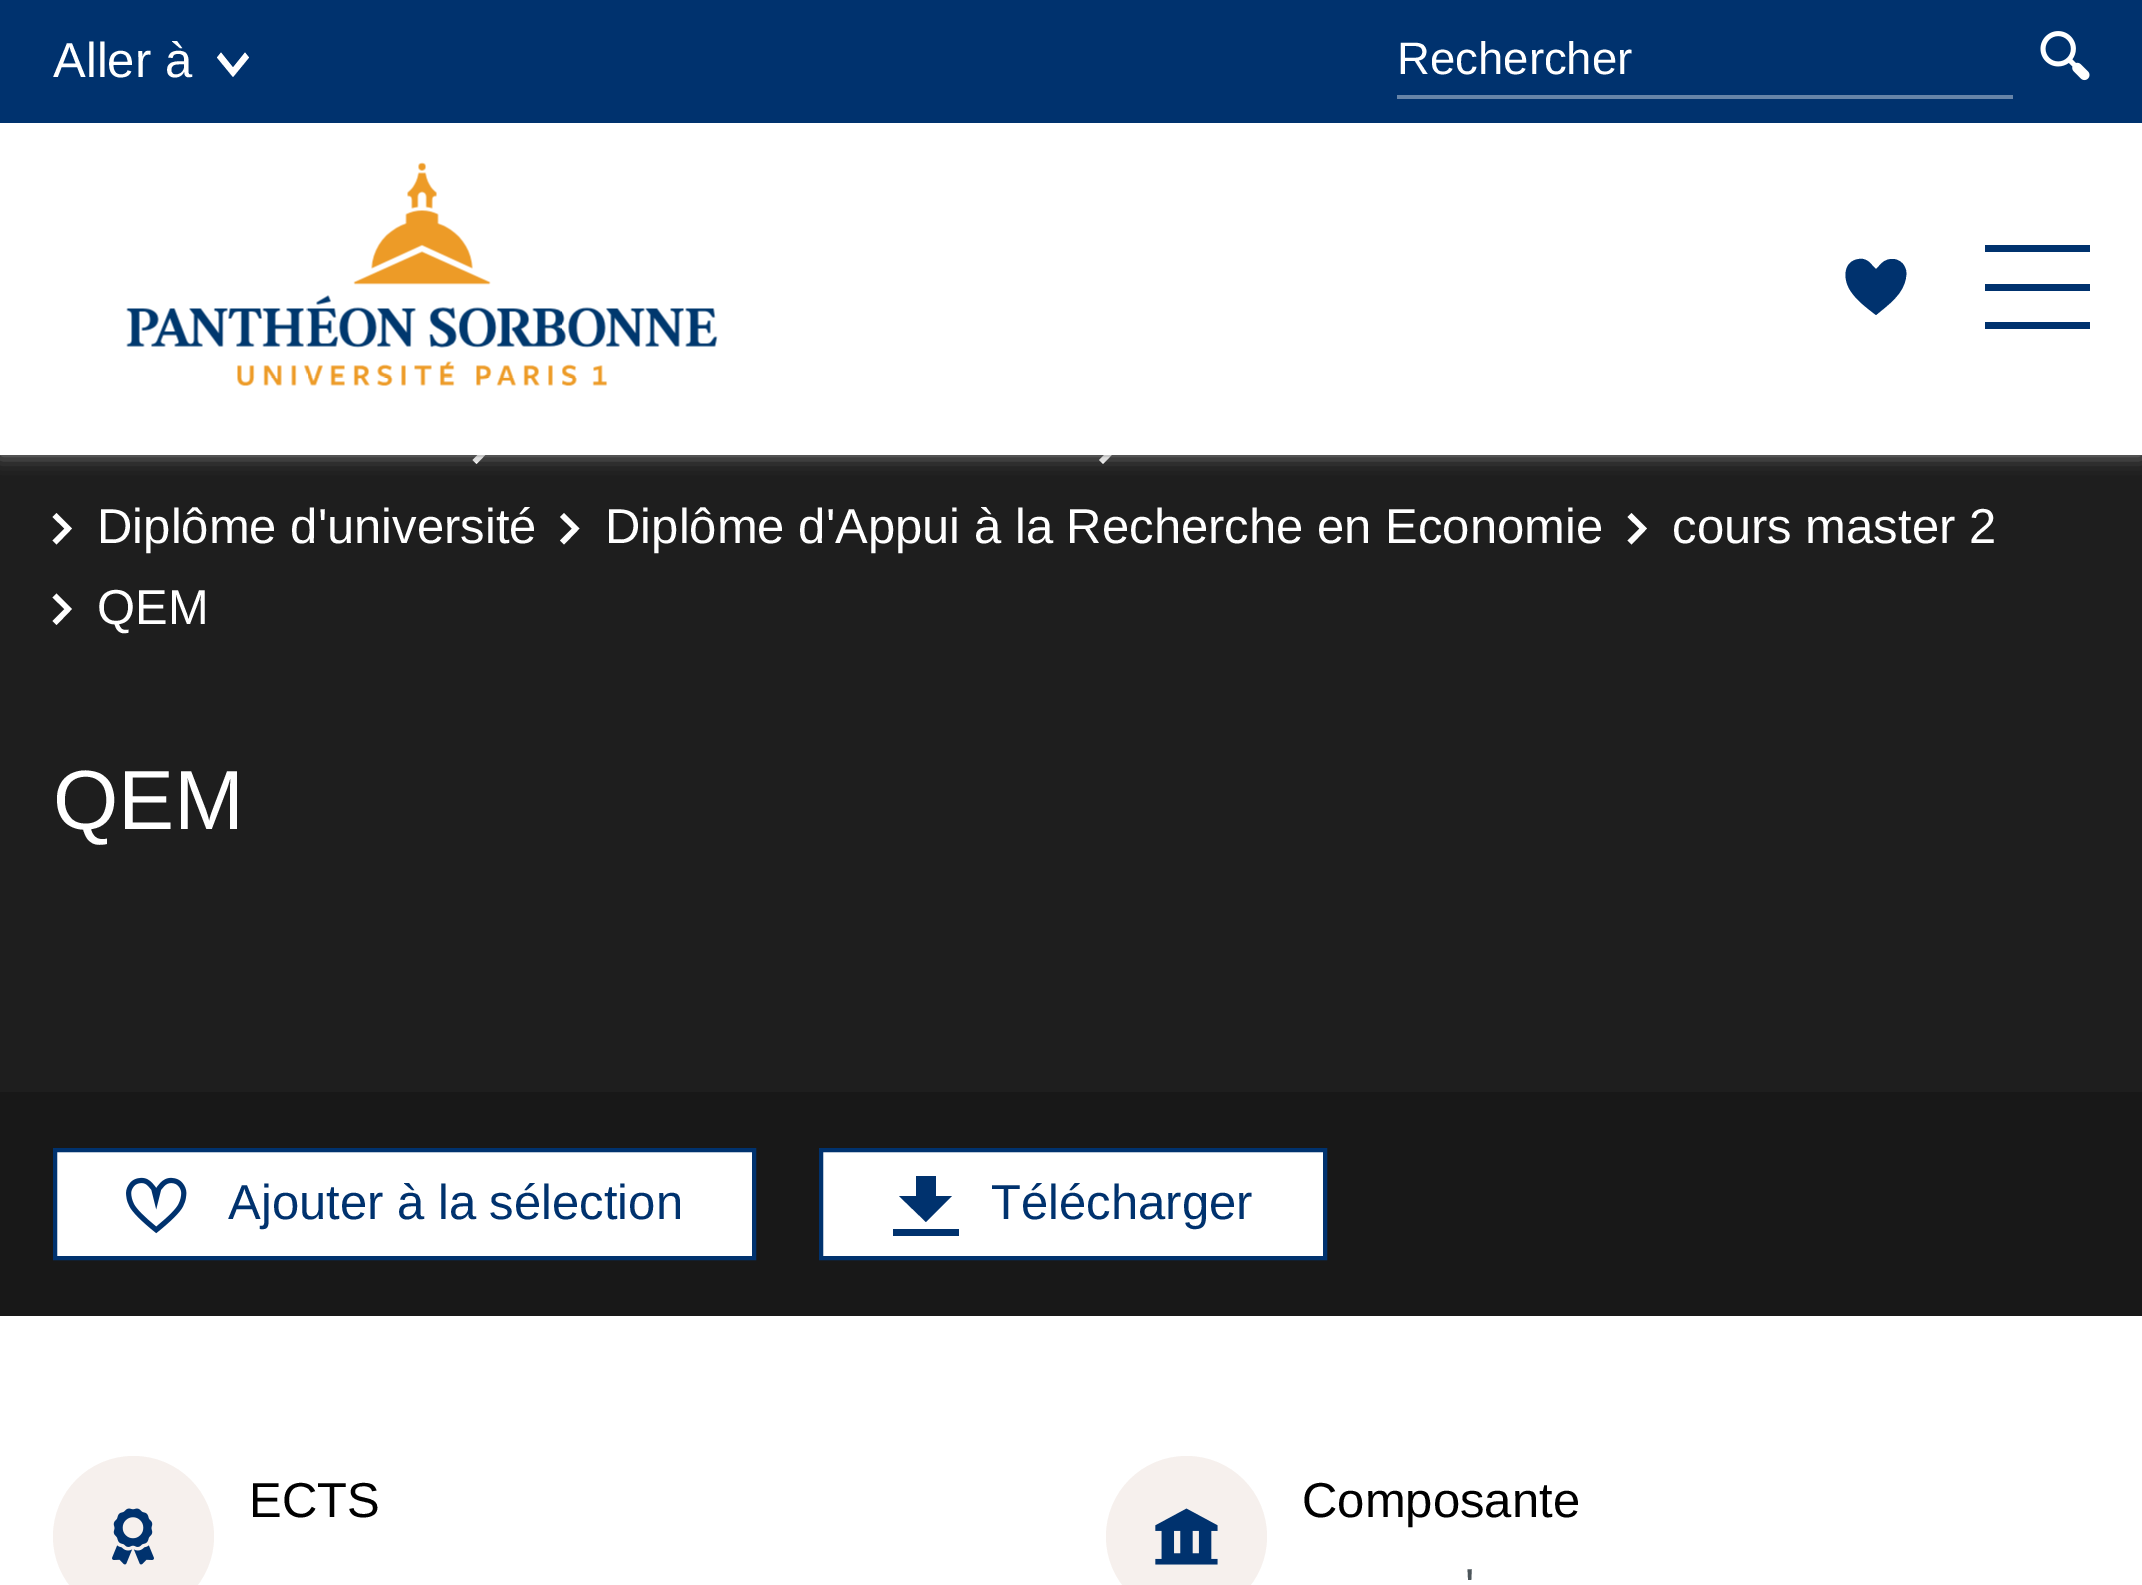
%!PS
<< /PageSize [2142 1585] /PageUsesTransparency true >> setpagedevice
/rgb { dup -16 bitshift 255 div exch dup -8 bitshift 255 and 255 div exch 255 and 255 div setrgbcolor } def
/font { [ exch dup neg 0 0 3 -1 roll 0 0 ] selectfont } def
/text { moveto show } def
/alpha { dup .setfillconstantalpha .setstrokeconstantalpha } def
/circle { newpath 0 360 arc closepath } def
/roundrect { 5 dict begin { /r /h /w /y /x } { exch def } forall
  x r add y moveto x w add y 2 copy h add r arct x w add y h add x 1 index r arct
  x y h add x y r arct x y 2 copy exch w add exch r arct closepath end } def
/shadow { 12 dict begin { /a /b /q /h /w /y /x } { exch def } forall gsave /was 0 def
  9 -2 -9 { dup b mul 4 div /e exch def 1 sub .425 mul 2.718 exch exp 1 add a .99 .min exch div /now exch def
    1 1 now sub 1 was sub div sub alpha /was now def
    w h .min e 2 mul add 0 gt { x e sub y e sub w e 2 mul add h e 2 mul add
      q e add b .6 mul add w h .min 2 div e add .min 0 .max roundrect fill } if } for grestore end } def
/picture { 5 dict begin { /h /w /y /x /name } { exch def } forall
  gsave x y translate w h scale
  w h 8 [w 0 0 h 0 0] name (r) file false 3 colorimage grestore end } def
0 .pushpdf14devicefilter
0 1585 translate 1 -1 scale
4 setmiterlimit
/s1 { /LiberationSans-Regular 49 font 16#FFFFFF rgb } def
/s2 { /LiberationSans-Regular 45.5 font 16#FFFFFF rgb } def
/s3 { /LiberationSans-Regular 84 font 16#FFFFFF rgb } def
/s4 { /LiberationSans-Regular 49 font 16#00326E rgb } def
/s5 { /LiberationSans-Regular 49 font 16#000000 rgb } def
/s6 { /LiberationSans-Regular 49 font 16#4D565B rgb } def
16#FFFFFF rgb
0 0 2142 1585 rectfill
16#1E1E1E rgb
0 455 2142 637 rectfill
16#FFFFFF rgb
490 450 moveto 492 448 lineto 476.5 432.5 lineto 472.5 436.5 lineto 484.5 448 lineto 472.5 460 lineto 476.5 464 lineto closepath fill
1116.5 450 moveto 1118.5 448 lineto 1103 432.5 lineto 1099 436.5 lineto 1111 448 lineto 1099 460 lineto 1103 464 lineto closepath fill
16#8A8A8A rgb
0 0 2142 455 0 9 1 shadow
16#FFFFFF rgb
0 123 2142 332 rectfill
16#00326E rgb
0 0 2142 123 rectfill
s1
(Aller à) 53 77 text
233 77 moveto 249 57.5 lineto 245 52.5 lineto 233 67.5 lineto 221 52.5 lineto 217 57.5 lineto closepath fill
16#6684A8 rgb
1397 95 616 4 rectfill
s2
(Rechercher) 1397 74 text
(pic1.raw) 2040 31 50 50 picture
(pic2.raw) 126 162 592 224 picture
16#00326E rgb
1903 264 moveto 1896 256 1885 258 1879 266 curveto 1876 269 lineto 1872 265 lineto 1869 261 1864 258 1859 259 curveto 1843 261 1843 279 1850 290 curveto 1856 300 1867 308 1876 315 curveto 1888 305 1904 294 1906 277 curveto 1907 272 1906 268 1903 264 curveto closepath fill
1985 245 105 7 rectfill
1985 284 105 7 rectfill
1985 322 105 7 rectfill
16#FFFFFF rgb
70 530.5 moveto 72 528.5 lineto 56.5 513 lineto 52.5 517 lineto 64.5 528.5 lineto 52.5 540.5 lineto 56.5 544.5 lineto closepath fill
s1
(Diplôme d'université) 97 543 text
577.5 530.5 moveto 579.5 528.5 lineto 564 513 lineto 560 517 lineto 572 528.5 lineto 560 540.5 lineto 564 544.5 lineto closepath fill
(Diplôme d'Appui à la Recherche en Economie) 605 543 text
1645 530.5 moveto 1647 528.5 lineto 1631.5 513 lineto 1627.5 517 lineto 1639.5 528.5 lineto 1627.5 540.5 lineto 1631.5 544.5 lineto closepath fill
(cours master 2) 1672 543 text
70 611 moveto 72 609 lineto 56.5 593.5 lineto 52.5 597.5 lineto 64.5 609 lineto 52.5 621 lineto 56.5 625 lineto closepath fill
(QEM) 97 624 text
s3
(QEM) 53 829 text
16#181818 rgb
0 1092 2142 224 rectfill
16#FFFFFF rgb
55 1150 moveto 754 1150 lineto 754 1258 lineto 55 1258 lineto closepath gsave fill grestore
16#00326E rgb
4 setlinewidth
stroke
(pic3.raw) 126 1177 61 57 picture
s4
(Ajouter à la sélection) 228 1219 text
16#FFFFFF rgb
821 1150 moveto 1325 1150 lineto 1325 1258 lineto 821 1258 lineto closepath gsave fill grestore
16#00326E rgb
stroke
936 1196 moveto 936 1176 lineto 916 1176 lineto 916 1196 lineto 899 1196 lineto 926 1222 lineto 952 1196 lineto closepath 893 1229 moveto 959 1229 lineto 959 1236 lineto 893 1236 lineto closepath fill
(Télécharger) 991 1219 text
16#F6F0ED rgb
133.5 1536.5 80.5 circle fill
(pic4.raw) 112 1508 42 57 picture
s5
(ECTS) 249 1517 text
16#F6F0ED rgb
1186.5 1536.5 80.5 circle fill
(pic5.raw) 1155 1508 63 57 picture
s5
(Composante) 1302 1517 text
s6
(') 1465 1603 text
.poppdf14devicefilter showpage
